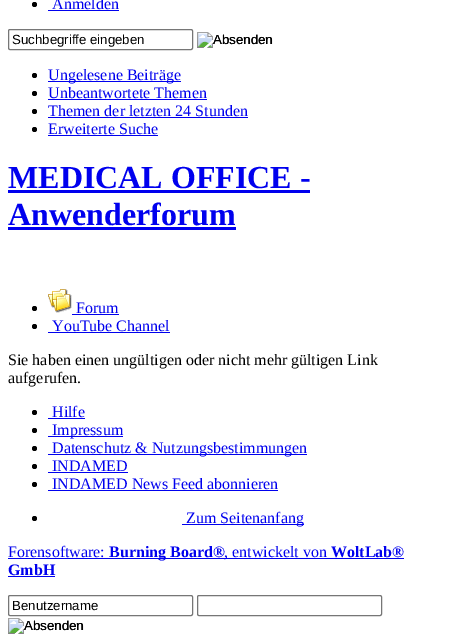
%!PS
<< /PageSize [461 643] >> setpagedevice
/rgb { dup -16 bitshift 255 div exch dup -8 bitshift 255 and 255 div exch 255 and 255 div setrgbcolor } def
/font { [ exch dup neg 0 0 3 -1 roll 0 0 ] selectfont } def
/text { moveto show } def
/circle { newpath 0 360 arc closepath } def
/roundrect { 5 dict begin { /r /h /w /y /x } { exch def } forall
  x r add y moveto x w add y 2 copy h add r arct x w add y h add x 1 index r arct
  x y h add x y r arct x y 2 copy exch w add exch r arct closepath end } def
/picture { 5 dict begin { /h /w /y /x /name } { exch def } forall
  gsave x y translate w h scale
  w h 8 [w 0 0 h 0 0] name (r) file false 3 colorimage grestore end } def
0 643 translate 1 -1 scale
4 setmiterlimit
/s1 { /LiberationSerif-Regular 16 font 16#0000EE rgb } def
/s2 { /LiberationSans-Regular 13.25 font 16#000000 rgb } def
/s3 { /LiberationSerif-Bold 32 font 16#0000EE rgb } def
/s4 { /LiberationSerif-Regular 16 font 16#000000 rgb } def
/s5 { /LiberationSerif-Bold 16 font 16#0000EE rgb } def
16#FFFFFF rgb
0 0 461 643 rectfill
16#000000 rgb
34.5 4.5 2.5 circle fill
s1
(Anmelden) 52 9 text
48 10 71 1 rectfill
16#767676 rgb
8.5 29.5 184 20 1.5 roundrect stroke
s2
(Suchbegriffe eingeben) 12 44 text
(pic1.raw) 197 32 76 16 picture
(Absenden) 213 44 text
34.5 75.5 2.5 circle fill
16#0000EE rgb
48 81 133 1 rectfill
s1
(Ungelesene Beiträge) 48 80 text
16#000000 rgb
34.5 93.5 2.5 circle fill
s1
(Unbeantwortete Themen) 48 98 text
48 99 159 1 rectfill
16#000000 rgb
34.5 111.5 2.5 circle fill
s1
(Themen der letzten 24 Stunden) 48 116 text
48 117 200 1 rectfill
16#000000 rgb
34.5 129.5 2.5 circle fill
s1
(Erweiterte Suche) 48 134 text
48 135 110 1 rectfill
s3
(MEDICAL OFFICE -) 8 188 text
8 190 302 3 rectfill
(Anwenderforum) 8 225 text
8 227 228 3 rectfill
16#000000 rgb
34.5 308.5 2.5 circle fill
(pic2.raw) 48 289 24 24 picture
s1
(Forum) 76 313 text
72 314 47 1 rectfill
16#000000 rgb
34.5 326.5 2.5 circle fill
s1
(YouTube Channel) 52 331 text
48 332 122 1 rectfill
s4
(Sie haben einen ungültigen oder nicht mehr gültigen Link) 8 365 text
(aufgerufen.) 8 383 text
34.5 412.5 2.5 circle fill
s1
(Hilfe) 52 417 text
48 418 37 1 rectfill
16#000000 rgb
34.5 430.5 2.5 circle fill
16#0000EE rgb
48 436 75 1 rectfill
(Impressum) 52 435 text
16#000000 rgb
34.5 448.5 2.5 circle fill
16#0000EE rgb
48 454 259 1 rectfill
(Datenschutz & Nutzungsbestimmungen) 52 453 text
16#000000 rgb
34.5 466.5 2.5 circle fill
s1
(INDAMED) 52 471 text
48 472 80 1 rectfill
16#000000 rgb
34.5 484.5 2.5 circle fill
s1
(INDAMED News Feed abonnieren) 52 489 text
48 490 230 1 rectfill
16#000000 rgb
34.5 518.5 2.5 circle fill
16#0000EE rgb
182 524 122 1 rectfill
(Zum Seitenanfang) 186 523 text
(Forensoftware:) 8 557 text
8 558 396 1 rectfill
s5
(Burning Board®) 109 557 text
s1
(, entwickelt von) 224 557 text
s5
(WoltLab®) 331 557 text
(GmbH) 8 575 text
8 576 47 1 rectfill
16#767676 rgb
8.5 595.5 184 20 1.5 roundrect stroke
s2
(Benutzername) 12 610 text
16#767676 rgb
197.5 595.5 184 20 1.5 roundrect stroke
(pic1.raw) 8 618 76 16 picture
s2
(Absenden) 24 630 text
showpage
